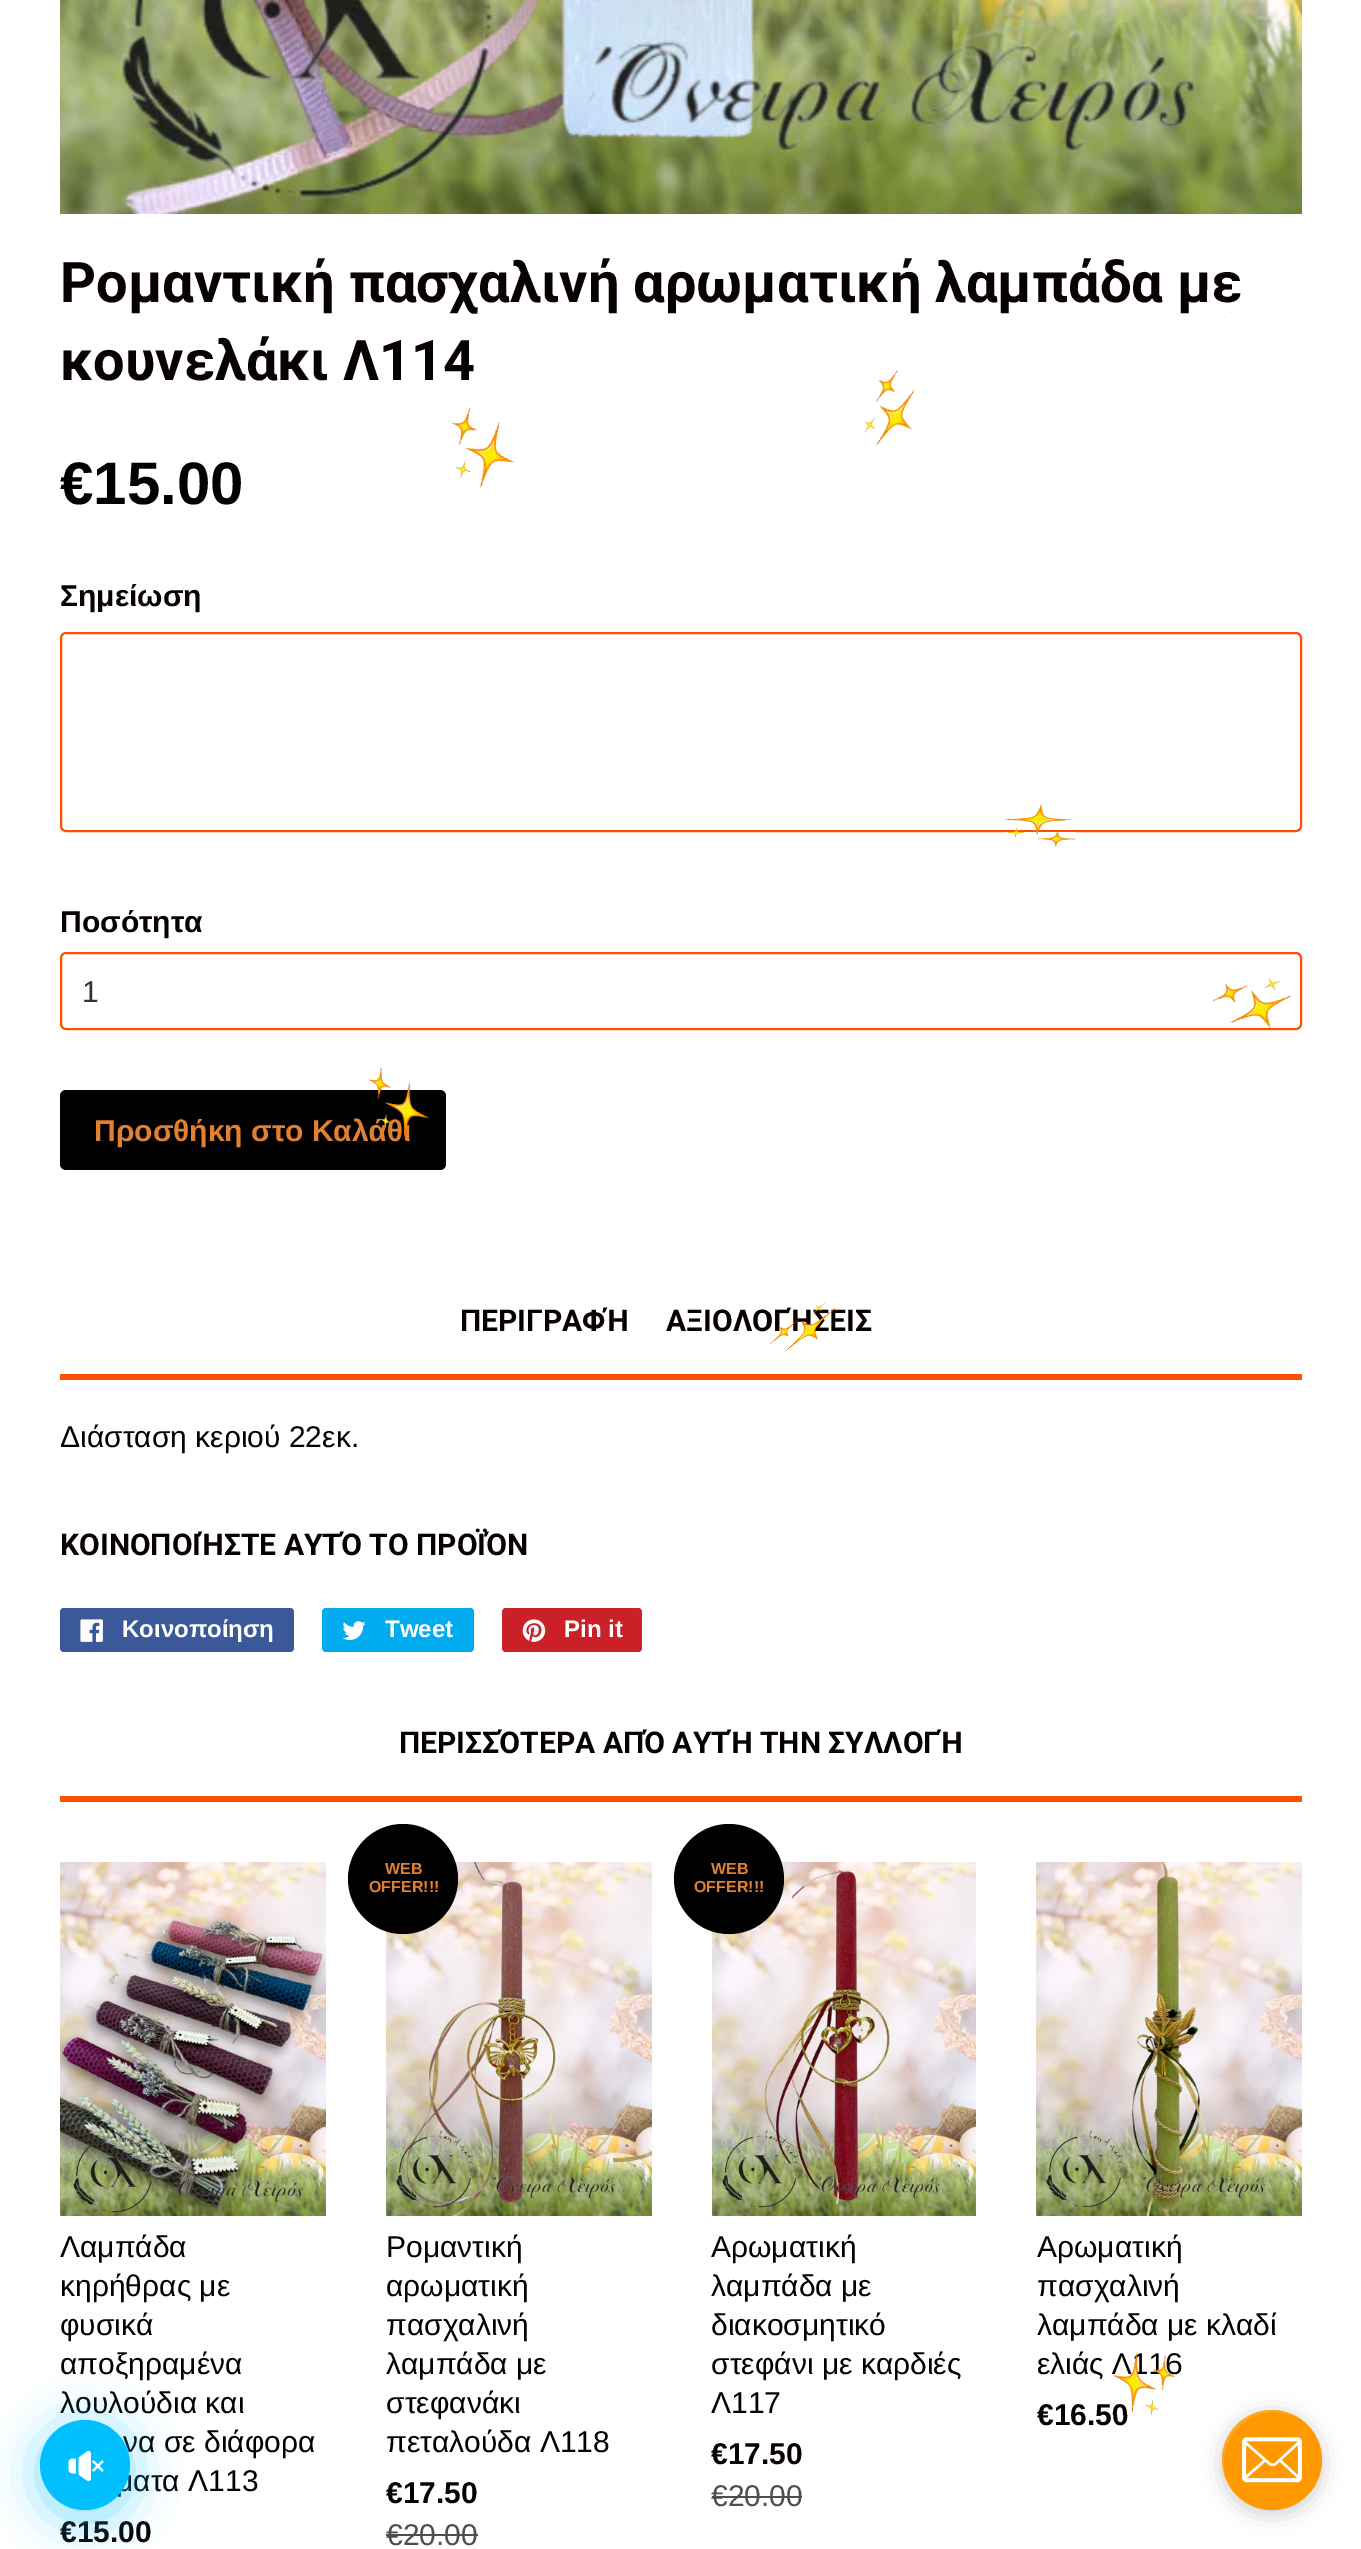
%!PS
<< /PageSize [1361 2549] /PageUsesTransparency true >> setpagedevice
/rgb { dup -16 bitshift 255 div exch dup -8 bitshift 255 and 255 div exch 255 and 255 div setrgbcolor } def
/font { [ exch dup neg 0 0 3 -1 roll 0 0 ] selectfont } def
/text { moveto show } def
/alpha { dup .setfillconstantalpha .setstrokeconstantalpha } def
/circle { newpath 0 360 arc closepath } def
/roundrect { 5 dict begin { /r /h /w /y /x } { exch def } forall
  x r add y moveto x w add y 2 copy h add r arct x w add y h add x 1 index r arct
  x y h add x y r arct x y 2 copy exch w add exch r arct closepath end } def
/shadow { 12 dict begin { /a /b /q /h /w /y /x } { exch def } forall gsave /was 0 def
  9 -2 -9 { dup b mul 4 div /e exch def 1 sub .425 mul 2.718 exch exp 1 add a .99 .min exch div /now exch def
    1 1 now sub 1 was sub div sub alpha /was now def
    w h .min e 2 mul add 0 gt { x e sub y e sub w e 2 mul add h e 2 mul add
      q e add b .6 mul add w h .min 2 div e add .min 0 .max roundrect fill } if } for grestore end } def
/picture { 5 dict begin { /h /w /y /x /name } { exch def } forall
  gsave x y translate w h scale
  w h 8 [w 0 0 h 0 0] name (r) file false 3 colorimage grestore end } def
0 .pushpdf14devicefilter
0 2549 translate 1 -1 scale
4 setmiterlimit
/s1 { /Roboto-Bold 56 font 16#080101 rgb } def
/s2 { /LiberationSans-Bold 60 font 16#010101 rgb } def
/s3 { /LiberationSans-Bold 30 font 16#080101 rgb } def
/s4 { /LiberationSans-Regular 30 font 16#333333 rgb } def
/s5 { /LiberationSans-Bold 30 font 16#E28031 rgb } def
/s6 { /Roboto-Bold 30 font 16#080101 rgb } def
/s7 { /LiberationSans-Regular 30 font 16#080101 rgb } def
/s8 { /LiberationSans-Bold 24 font 16#FFFFFF rgb } def
/s9 { /LiberationSans-Regular 30 font 16#010101 rgb } def
/s10 { /LiberationSans-Bold 16 font 16#E28031 rgb } def
/s11 { /LiberationSans-Regular 30 font 16#524D4D rgb } def
16#FFFFFF rgb
0 0 1361 2549 rectfill
(pic1.raw) 60 0 1242 214 picture
s1
(Ρομαντική πασχαλινή αρωματική λαμπάδα με) 60 302 text
(κουνελάκι Λ114) 60 380 text
s2
(€15.00) 60 504 text
s3
(Σημείωση) 60 606 text
16#FC5103 rgb
2 setlinewidth
61 633 1240 198 5 roundrect stroke
s3
(Ποσότητα) 60 932 text
16#FC5103 rgb
61 953 1240 76 5 roundrect stroke
s4
(1) 82 1002 text
16#010101 rgb
60 1090 386 80 6 roundrect fill
s5
(Προσθήκη στο Καλάθι) 94 1141 text
16#FC5103 rgb
60 1374 1242 6 rectfill
s6
(ΠΕΡΙΓΡΑΦΉ) 460 1331 text
(ΑΞΙΟΛΟΓΉΣΕΙΣ) 666 1331 text
s7
(Διάσταση κεριού 22εκ.) 60 1447 text
s6
(ΚΟΙΝΟΠΟΙΉΣΤΕ ΑΥΤΌ ΤΟ ΠΡΟΪΌΝ) 60 1555 text
16#3B5998 rgb
60 1608 234 44 4 roundrect fill
(pic2.raw) 80 1619 23 23 picture
s8
(Κοινοποίηση) 122 1637 text
16#00ACED rgb
322 1608 152 44 4 roundrect fill
(pic3.raw) 342 1621 24 19 picture
s8
(Tweet) 385 1637 text
16#CB2027 rgb
502 1608 140 44 4 roundrect fill
(pic4.raw) 522 1619 24 23 picture
s8
(Pin it) 564 1637 text
16#FC5103 rgb
60 1796 1242 6 rectfill
s6
(ΠΕΡΙΣΣΌΤΕΡΑ ΑΠΌ ΑΥΤΉ ΤΗΝ ΣΥΛΛΟΓΉ) 399 1753 text
(pic5.raw) 60 1862 266 354 picture
s9
(Λαμπάδα) 60 2257 text
(κηρήθρας με) 60 2296 text
(φυσικά) 60 2335 text
(αποξηραμένα) 60 2374 text
(λουλούδια και) 60 2413 text
(να σε διάφορα) 123 2452 text
(ματα Λ113) 116 2491 text
s3
(€15.00) 60 2542 text
(pic6.raw) 386 1862 266 354 picture
16#010101 rgb
403 1879 55 circle fill
s10
(WEB) 385 1874 text
(OFFER!!!) 369 1892 text
s9
(Ρομαντική) 386 2257 text
(αρωματική) 386 2296 text
(πασχαλινή) 386 2335 text
(λαμπάδα με) 386 2374 text
(στεφανάκι) 386 2413 text
(πεταλούδα Λ118) 386 2452 text
s3
(€17.50) 386 2503 text
s11
(€20.00) 386 2545 text
386 2534 92 2 rectfill
(pic7.raw) 712 1862 264 354 picture
16#010101 rgb
729 1879 55 circle fill
s10
(WEB) 711 1874 text
(OFFER!!!) 694 1892 text
s9
(Αρωματική) 711 2257 text
(λαμπάδα με) 711 2296 text
(διακοσμητικό) 711 2335 text
(στεφάνι με καρδιές) 711 2374 text
(Λ117) 711 2413 text
s3
(€17.50) 711 2464 text
s11
(€20.00) 711 2506 text
712 2496 90 2 rectfill
(pic8.raw) 1036 1862 266 354 picture
s9
(Αρωματική) 1037 2257 text
(πασχαλινή) 1037 2296 text
(λαμπάδα με κλαδί) 1037 2335 text
(ελιάς Λ116) 1037 2374 text
s3
(€16.50) 1037 2425 text
(pic9.raw) 1200 290 32 23 picture
(pic10.raw) 452 408 63 80 picture
(pic11.raw) 865 370 50 75 picture
(pic12.raw) 1005 804 71 43 picture
(pic13.raw) 1213 978 79 51 picture
(pic14.raw) 368 1067 62 71 picture
(pic15.raw) 769 1302 66 50 picture
(pic16.raw) 137 2008 54 20 picture
(pic17.raw) 1112 2352 63 63 picture
16#00BFFF rgb
40 2428 90 90 45 24 0.5 shadow
85 2465 45 circle fill
(pic18.raw) 68 2450 36 32 picture
16#808080 rgb
1222 2414 100 100 50 11 0.4 shadow
16#FF9900 rgb
1272 2460 50 circle fill
0.15 alpha
16#FFFFFF rgb
1274 2412 moveto 1286 2412 1297 2416 1306 2423 curveto 1286 2405 1255 2406 1237 2425 curveto 1218 2443 1217 2474 1235 2494 curveto 1209 2462 1231 2412 1274 2412 curveto closepath fill
1 alpha
(pic19.raw) 1242 2437 60 46 picture
.poppdf14devicefilter showpage
